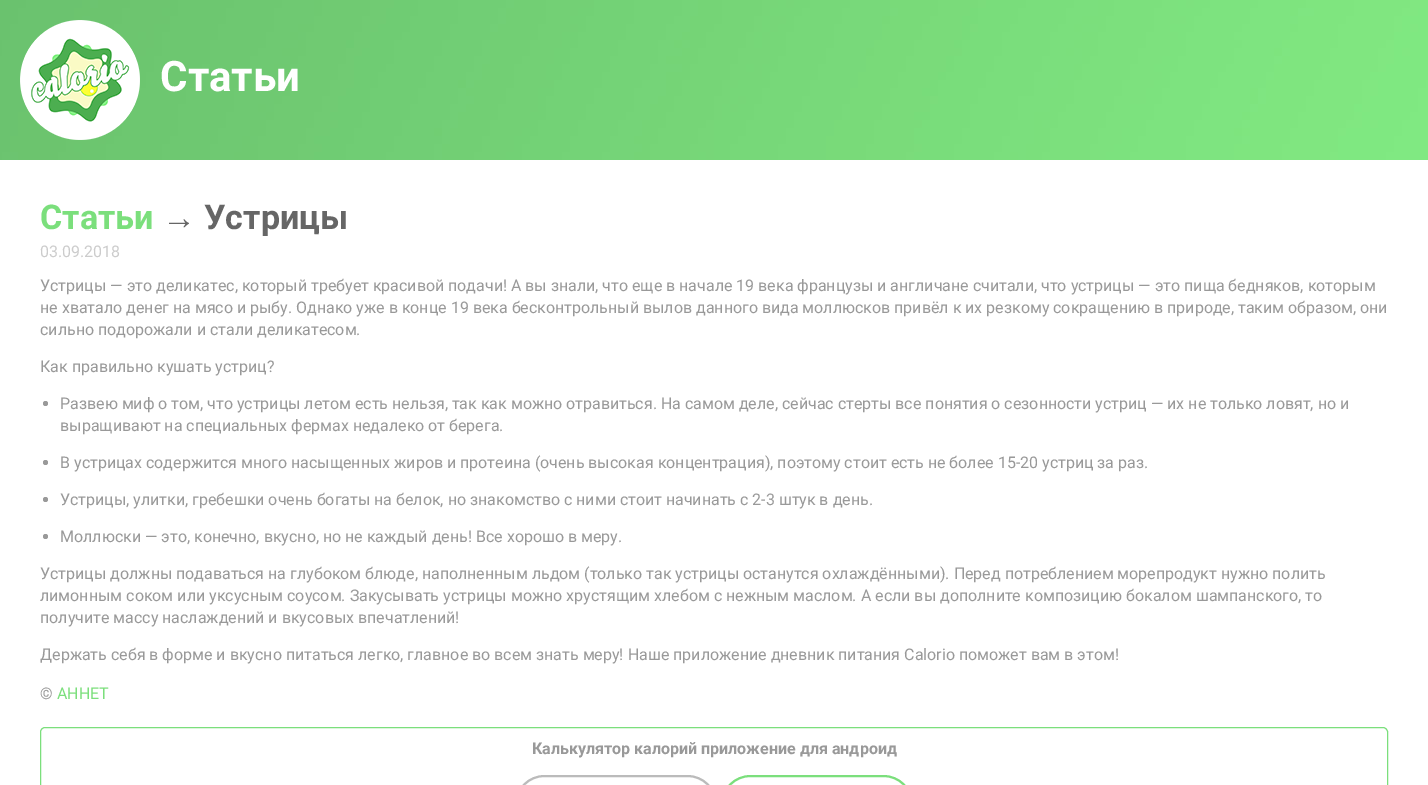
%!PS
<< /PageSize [1428 785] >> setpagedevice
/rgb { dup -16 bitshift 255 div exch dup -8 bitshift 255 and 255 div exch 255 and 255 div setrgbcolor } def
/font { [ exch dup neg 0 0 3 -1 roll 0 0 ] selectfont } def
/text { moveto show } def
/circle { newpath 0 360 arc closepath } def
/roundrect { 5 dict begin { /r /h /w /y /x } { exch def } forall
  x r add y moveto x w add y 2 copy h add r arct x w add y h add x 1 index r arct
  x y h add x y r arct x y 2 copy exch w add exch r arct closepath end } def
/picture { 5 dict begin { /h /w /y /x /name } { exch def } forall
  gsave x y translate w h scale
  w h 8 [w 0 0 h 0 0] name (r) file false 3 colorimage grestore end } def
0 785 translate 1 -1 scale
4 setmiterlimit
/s1 { /Roboto-Bold 42 font 16#FFFFFF rgb } def
/s2 { /Roboto-Bold 34 font 16#7BDF7C rgb } def
/s3 { /LiberationSans-Bold 34 font 16#666666 rgb } def
/s4 { /Roboto-Bold 34 font 16#666666 rgb } def
/s5 { /Roboto-Regular 16 font 16#CCCCCC rgb } def
/s6 { /Roboto-Regular 16 font 16#999999 rgb } def
/s7 { /Roboto-Regular 16 font 16#7BDF7C rgb } def
/s8 { /Roboto-Bold 16 font 16#999999 rgb } def
16#FFFFFF rgb
0 0 1428 785 rectfill
(pic1.raw) 0 0 1428 160 picture
(pic2.raw) 20 20 120 120 picture
s1
(Статьи) 160 91 text
s2
(Статьи) 40 229 text
s3
(→) 162 229 text
s4
(Устрицы) 204 229 text
s5
(03.09.2018) 40 257 text
s6
(Устрицы — это деликатес, который требует красивой подачи! А вы знали, что еще в начале 19 века французы и англичане считали, что устрицы — это пища бедняков, которым) 40 291 text
(не хватало денег на мясо и рыбу. Однако уже в конце 19 века бесконтрольный вылов данного вида моллюсков привёл к их резкому сокращению в природе, таким образом, они) 40 313 text
(сильно подорожали и стали деликатесом.) 40 335 text
(Как правильно кушать устриц?) 40 372 text
45.5 403.5 2.5 circle fill
(Развею миф о том, что устрицы летом есть нельзя, так как можно отравиться. На самом деле, сейчас стерты все понятия о сезонности устриц — их не только ловят, но и) 60 409 text
(выращивают на специальных фермах недалеко от берега.) 60 431 text
45.5 462.5 2.5 circle fill
(В устрицах содержится много насыщенных жиров и протеина \(очень высокая концентрация\), поэтому стоит есть не более 15-20 устриц за раз.) 60 468 text
45.5 499.5 2.5 circle fill
(Устрицы, улитки, гребешки очень богаты на белок, но знакомство с ними стоит начинать с 2-3 штук в день.) 60 505 text
45.5 536.5 2.5 circle fill
(Моллюски — это, конечно, вкусно, но не каждый день! Все хорошо в меру.) 60 542 text
(Устрицы должны подаваться на глубоком блюде, наполненным льдом \(только так устрицы останутся охлаждёнными\). Перед потреблением морепродукт нужно полить) 40 579 text
(лимонным соком или уксусным соусом. Закусывать устрицы можно хрустящим хлебом с нежным маслом. А если вы дополните композицию бокалом шампанского, то) 40 601 text
(получите массу наслаждений и вкусовых впечатлений!) 40 623 text
(Держать себя в форме и вкусно питаться легко, главное во всем знать меру! Наше приложение дневник питания Calorio поможет вам в этом!) 40 660 text
(©) 40 699 text
s7
(АННЕТ) 57 699 text
40.5 727.5 1347 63 4.5 roundrect stroke
s8
(Калькулятор калорий приложение для андроид) 532 754 text
16#BBBBBB rgb
2 setlinewidth
516 776 200 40 28.5 roundrect stroke
16#7BDF7C rgb
722 776 190 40 28.5 roundrect stroke
showpage
